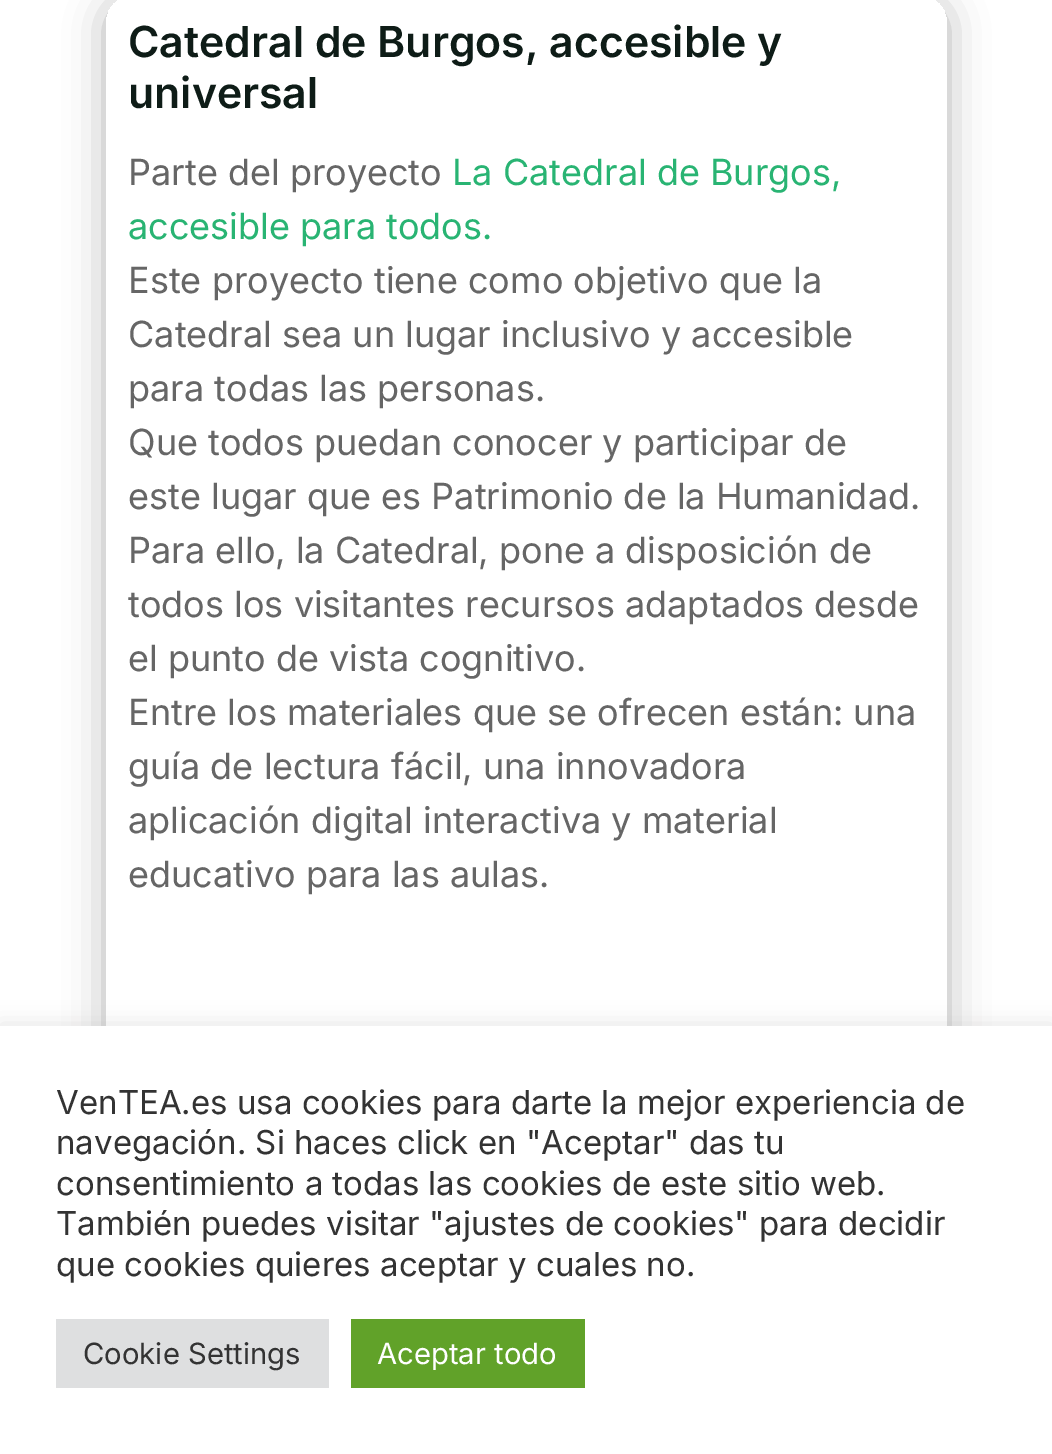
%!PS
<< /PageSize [1052 1454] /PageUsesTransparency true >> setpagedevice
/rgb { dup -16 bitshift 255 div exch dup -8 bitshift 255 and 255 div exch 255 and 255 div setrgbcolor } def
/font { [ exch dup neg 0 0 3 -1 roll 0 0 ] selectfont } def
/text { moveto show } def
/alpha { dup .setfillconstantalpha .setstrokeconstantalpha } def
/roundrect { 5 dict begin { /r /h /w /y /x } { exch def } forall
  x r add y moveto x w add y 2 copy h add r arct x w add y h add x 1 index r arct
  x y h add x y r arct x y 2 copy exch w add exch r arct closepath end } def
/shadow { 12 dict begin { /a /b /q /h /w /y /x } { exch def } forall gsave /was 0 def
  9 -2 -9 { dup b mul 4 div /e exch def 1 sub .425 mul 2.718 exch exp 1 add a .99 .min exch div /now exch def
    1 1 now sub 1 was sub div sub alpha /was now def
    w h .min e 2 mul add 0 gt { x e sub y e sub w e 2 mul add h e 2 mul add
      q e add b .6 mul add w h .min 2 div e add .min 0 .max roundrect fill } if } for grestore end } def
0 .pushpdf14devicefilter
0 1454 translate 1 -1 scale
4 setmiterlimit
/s1 { /Inter-SemiBold 42.75 font 16#0E1C17 rgb } def
/s2 { /Inter-Regular 36 font 16#666666 rgb } def
/s3 { /Inter-Regular 36 font 16#29B473 rgb } def
/s4 { /Inter-Regular 33 font 16#333333 rgb } def
/s5 { /Inter-Regular 29.25 font 16#333333 rgb } def
/s6 { /Inter-Regular 29.25 font 16#FFFFFF rgb } def
16#FFFFFF rgb
0 0 1052 1454 rectfill
gsave
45 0 moveto 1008 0 lineto 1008 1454 lineto 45 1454 lineto closepath 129 -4 moveto 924 -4 lineto 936.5 -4 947 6.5 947 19 curveto 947 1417 lineto 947 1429.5 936.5 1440 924 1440 curveto 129 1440 lineto 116.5 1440 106 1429.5 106 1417 curveto 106 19 lineto 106 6.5 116.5 -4 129 -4 curveto closepath eoclip newpath
16#000000 rgb
106 0 841 1445 23 20 0.3 shadow
grestore
s1
(Catedral de Burgos, accesible y) 128 57 text
(universal) 128 108 text
s2
(Parte del proyecto) 128 185 text
s3
(La Catedral de Burgos,) 452 185 text
(accesible para todos.) 128 239 text
s2
(Este proyecto tiene como objetivo que la) 128 293 text
(Catedral sea un lugar inclusivo y accesible) 128 347 text
(para todas las personas.) 128 401 text
(Que todos puedan conocer y participar de) 128 455 text
(este lugar que es Patrimonio de la Humanidad.) 128 509 text
(Para ello, la Catedral, pone a disposición de) 128 563 text
(todos los visitantes recursos adaptados desde) 128 617 text
(el punto de vista cognitivo.) 128 671 text
(Entre los materiales que se ofrecen están: una) 128 725 text
(guía de lectura fácil, una innovadora) 128 779 text
(aplicación digital interactiva y material) 128 833 text
(educativo para las aulas.) 128 887 text
16#ACABAB rgb
0 1024 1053 430 0 11 0.3 shadow
16#FFFFFF rgb
0 1026 1052 428 rectfill
s4
(VenTEA.es usa cookies para darte la mejor experiencia de) 56 1114 text
(navegación. Si haces click en "Aceptar" das tu) 56 1154 text
(consentimiento a todas las cookies de este sitio web.) 56 1195 text
(También puedes visitar "ajustes de cookies" para decidir) 56 1235 text
(que cookies quieres aceptar y cuales no.) 56 1276 text
16#DEDFE0 rgb
56 1319 273 69 rectfill
s5
(Cookie Settings) 83 1364 text
16#61A229 rgb
351 1319 234 69 rectfill
s6
(Aceptar todo) 377 1364 text
.poppdf14devicefilter showpage
